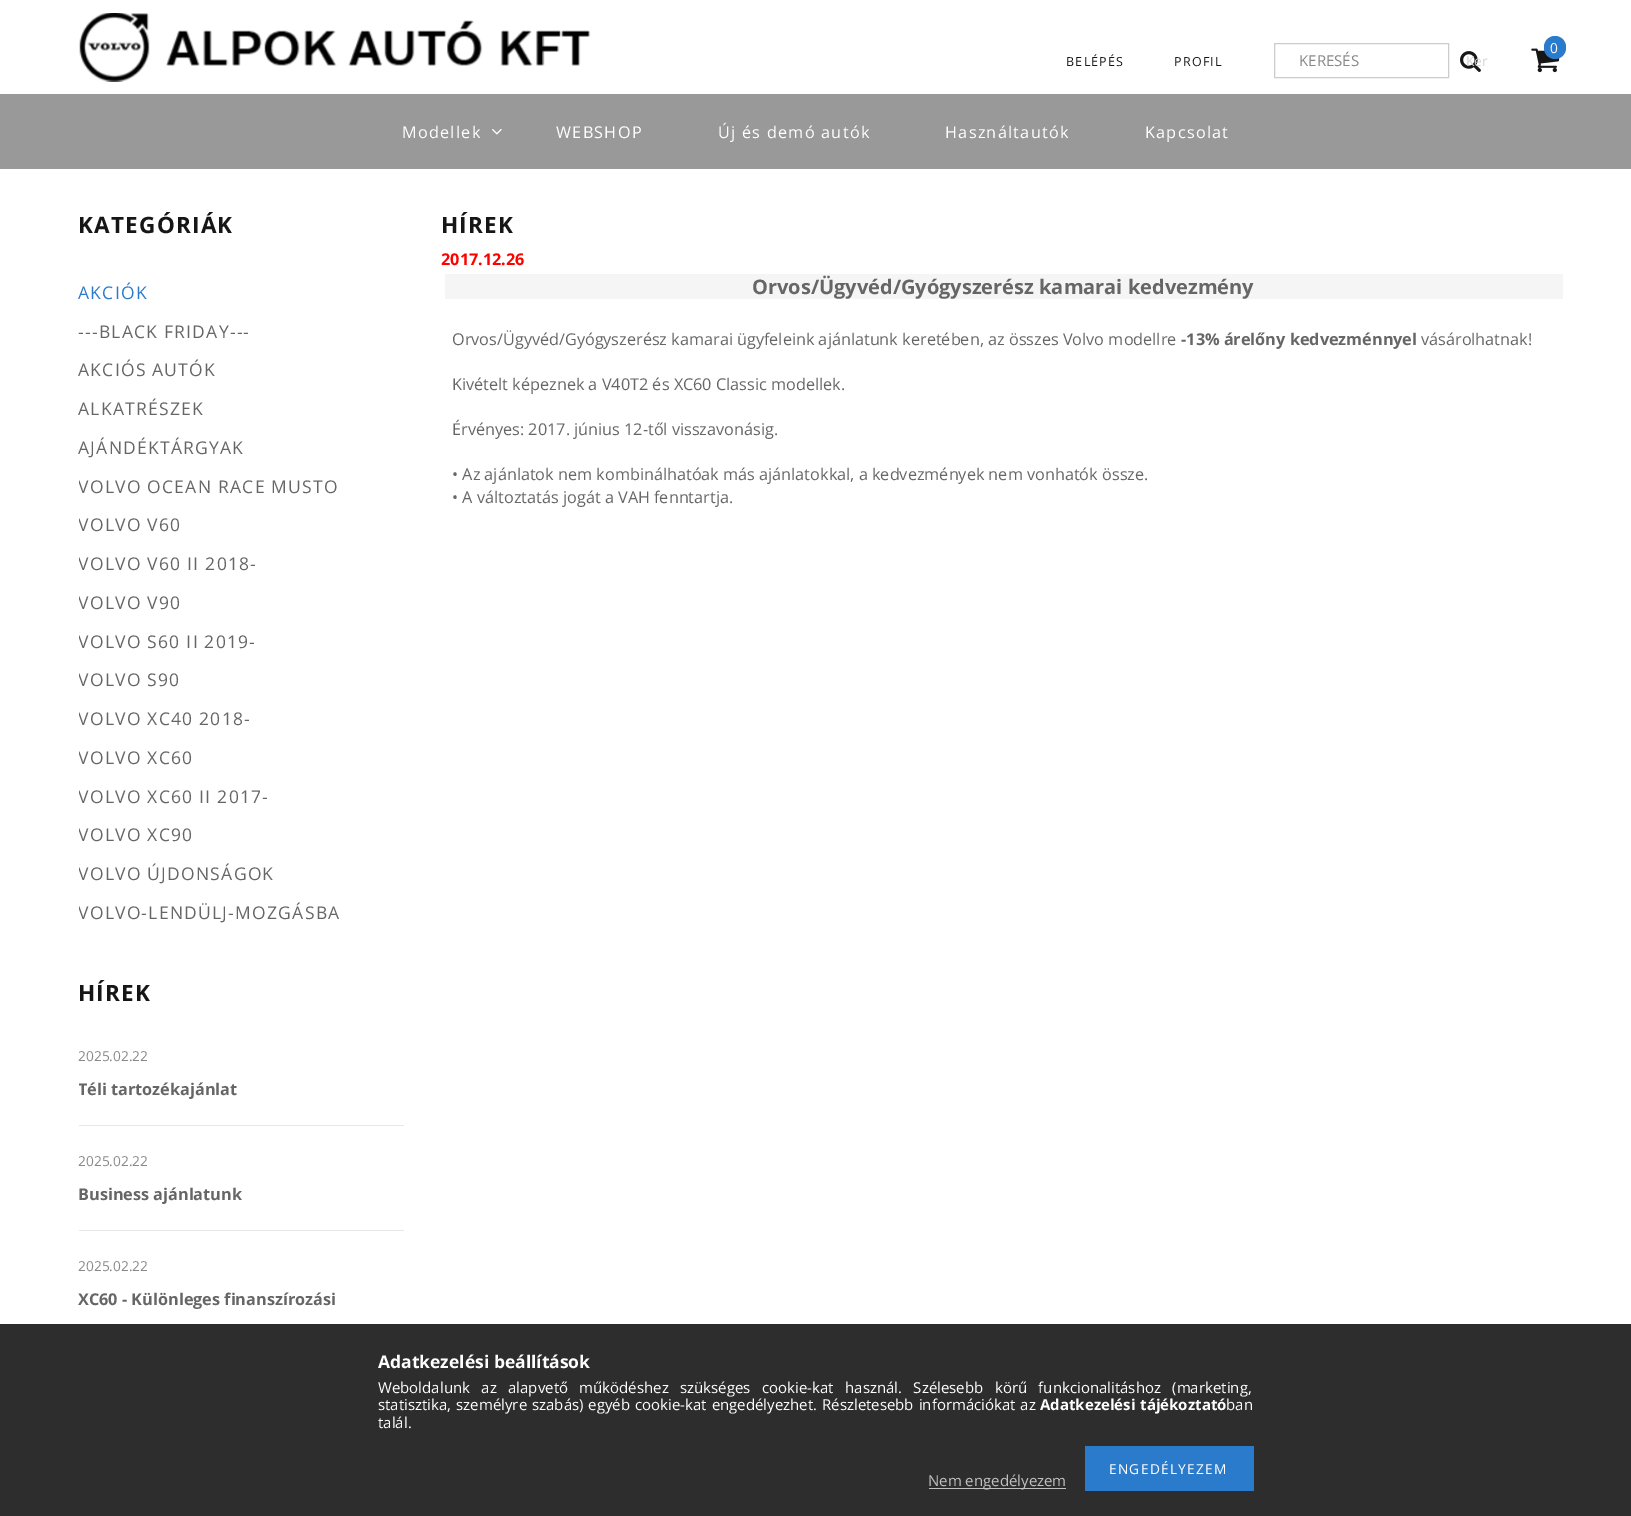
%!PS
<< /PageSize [1631 1516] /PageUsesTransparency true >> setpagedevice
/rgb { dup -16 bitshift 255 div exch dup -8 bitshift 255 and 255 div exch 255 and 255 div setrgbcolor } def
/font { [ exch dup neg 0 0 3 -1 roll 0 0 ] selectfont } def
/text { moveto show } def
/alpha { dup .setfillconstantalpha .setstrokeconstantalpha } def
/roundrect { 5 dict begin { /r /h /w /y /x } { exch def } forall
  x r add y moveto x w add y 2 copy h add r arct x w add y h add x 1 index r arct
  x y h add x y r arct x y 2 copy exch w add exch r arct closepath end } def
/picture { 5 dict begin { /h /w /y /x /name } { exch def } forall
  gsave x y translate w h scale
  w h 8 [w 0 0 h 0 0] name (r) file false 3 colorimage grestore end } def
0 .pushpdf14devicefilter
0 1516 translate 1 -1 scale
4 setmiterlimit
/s1 { /OpenSans-Regular 13.75 font 16#FFFFFF rgb } def
/s2 { /OpenSans-Regular 15 font 16#888888 rgb } def
/s3 { /OpenSans-Regular 13.75 font 16#D1D1D1 rgb } def
/s4 { /OpenSans-Regular 13.75 font 16#888888 rgb } def
/s5 { /OpenSans-Bold 16.25 font 16#666666 rgb } def
/s6 { /OpenSans-Bold 16.25 font 16#FF0000 rgb } def
/s7 { /OpenSans-Bold 20 font 16#666666 rgb } def
/s8 { /OpenSans-Regular 16.25 font 16#666666 rgb } def
/s9 { /OpenSans-Bold 17.5 font 16#FFFFFF rgb } def
/s10 { /OpenSans-Regular 15 font 16#FFFFFF rgb } def
/s11 { /OpenSans-Regular 15 font 16#C0C0C0 rgb } def
16#FFFFFF rgb
0 0 1631 1516 rectfill
(pic1.raw) 79 13 512 69 picture
(pic2.raw) 1531 48 29 25 picture
16#2B7BCD rgb
1544 36 22 23 11 roundrect fill
s1
(0) 1550 53 text
/OpenSans-Regular 12.5 font
16#161616 rgb
1066 66 moveto 1.25 0 (BELÉPÉS) ashow
1174 66 moveto 1.25 0 (PROFIL) ashow
16#CCCCCC rgb
1274.5 43.5 174 34 rectstroke
s2
(KERESÉS) 1299 66 text
(pic3.raw) 1460 51 21 21 picture
s3
(Ker) 1466 66 text
16#999999 rgb
0 94 1631 75 rectfill
/OpenSans-Regular 16.25 font
16#FFFFFF rgb
402 138 moveto 1.25 0 (Modellek) ashow
(pic4.raw) 492 129 10 6 picture
556 138 moveto 1.25 0 (WEBSHOP) ashow
718 138 moveto 1.25 0 (Új és demó autók) ashow
945 138 moveto 1.25 0 (Használtautók) ashow
1145 138 moveto 1.25 0 (Kapcsolat) ashow
/OpenSans-Bold 22.5 font
16#161616 rgb
78 233 moveto 1.25 0 (KATEGÓRIÁK) ashow
/OpenSans-Regular 17.5 font
16#2B7BCD rgb
78 299 moveto 1.25 0 (AKCIÓK) ashow
16#666666 rgb
78 338 moveto 1.25 0 (---BLACK FRIDAY---) ashow
78 376 moveto 1.25 0 (AKCIÓS AUTÓK) ashow
78 415 moveto 1.25 0 (ALKATRÉSZEK) ashow
78 454 moveto 1.25 0 (AJÁNDÉKTÁRGYAK) ashow
gsave
79 273 325 658 rectclip
78 493 moveto 1.25 0 (VOLVO OCEAN RACE MUSTO) ashow
78 531 moveto 1.25 0 (VOLVO V60) ashow
78 570 moveto 1.25 0 (VOLVO V60 II 2018-) ashow
78 609 moveto 1.25 0 (VOLVO V90) ashow
78 648 moveto 1.25 0 (VOLVO S60 II 2019-) ashow
78 686 moveto 1.25 0 (VOLVO S90) ashow
78 725 moveto 1.25 0 (VOLVO XC40 2018-) ashow
78 764 moveto 1.25 0 (VOLVO XC60) ashow
78 803 moveto 1.25 0 (VOLVO XC60 II 2017-) ashow
78 841 moveto 1.25 0 (VOLVO XC90) ashow
78 880 moveto 1.25 0 (VOLVO ÚJDONSÁGOK) ashow
78 919 moveto 1.25 0 (VOLVO-LENDÜLJ-MOZGÁSBA) ashow
grestore
/OpenSans-Bold 22.5 font
16#161616 rgb
78 1001 moveto 1.25 0 (HÍREK) ashow
16#E7E7E7 rgb
79 1125 325 1 rectfill
s4
(2025.02.22) 78 1061 text
gsave
79 1041 325 470 rectclip
s5
(Téli tartozékajánlat) 78 1095 text
grestore
16#E7E7E7 rgb
79 1230 325 1 rectfill
s4
(2025.02.22) 78 1166 text
s5
(Business ajánlatunk) 78 1200 text
16#E7E7E7 rgb
79 1358 325 1 rectfill
s4
(2025.02.22) 78 1271 text
s5
(XC60 - Különleges finanszírozási) 78 1305 text
16#E7E7E7 rgb
79 1485 325 1 rectfill
/OpenSans-Bold 22.5 font
16#161616 rgb
441 233 moveto 1.25 0 (HÍREK) ashow
s6
(2017.12.26) 441 265 text
16#F5F5F5 rgb
445 274 1118 25 rectfill
s7
(Orvos/Ügyvéd/Gyógyszerész kamarai kedvezmény) 752 294 text
s8
(Orvos/Ügyvéd/Gyógyszerész kamarai ügyfeleink ajánlatunk keretében, az összes Volvo modellre) 452 345 text
s5
(-13% árelőny kedvezménnyel) 1181 345 text
s8
(vásárolhatnak!) 1421 345 text
(Kivételt képeznek a V40T2 és XC60 Classic modellek.) 452 390 text
(Érvényes: 2017. június 12-től visszavonásig.) 452 435 text
(• Az ajánlatok nem kombinálhatóak más ajánlatokkal, a kedvezmények nem vonhatók össze.) 452 480 text
(• A változtatás jogát a VAH fenntartja.) 452 503 text
0.95 alpha
16#222222 rgb
0 1324 1631 192 rectfill
1 alpha
s9
(Adatkezelési beállítások) 378 1368 text
/OpenSans-Regular 15 font
378 1393 moveto 7.5 0 32 (Weboldalunk az alapvető működéshez szükséges cookie-kat használ. Szélesebb körű funkcionalitáshoz \(marketing,) widthshow
378 1410 moveto 1 0 32 (statisztika, személyre szabás\) egyéb cookie-kat engedélyezhet. Részletesebb információkat az) widthshow
/OpenSans-Bold 15 font
1040 1410 moveto 1 0 32 (Adatkezelési tájékoztató) widthshow
s10
(ban) 1226 1410 text
(talál.) 378 1428 text
16#2B7BCD rgb
1085 1446 169 45 rectfill
/OpenSans-Regular 13.75 font
16#FFFFFF rgb
1109 1474 moveto 1.25 0 (ENGEDÉLYEZEM) ashow
16#C0C0C0 rgb
929 1488 137 1 rectfill
s11
(Nem engedélyezem) 928 1486 text
.poppdf14devicefilter showpage
